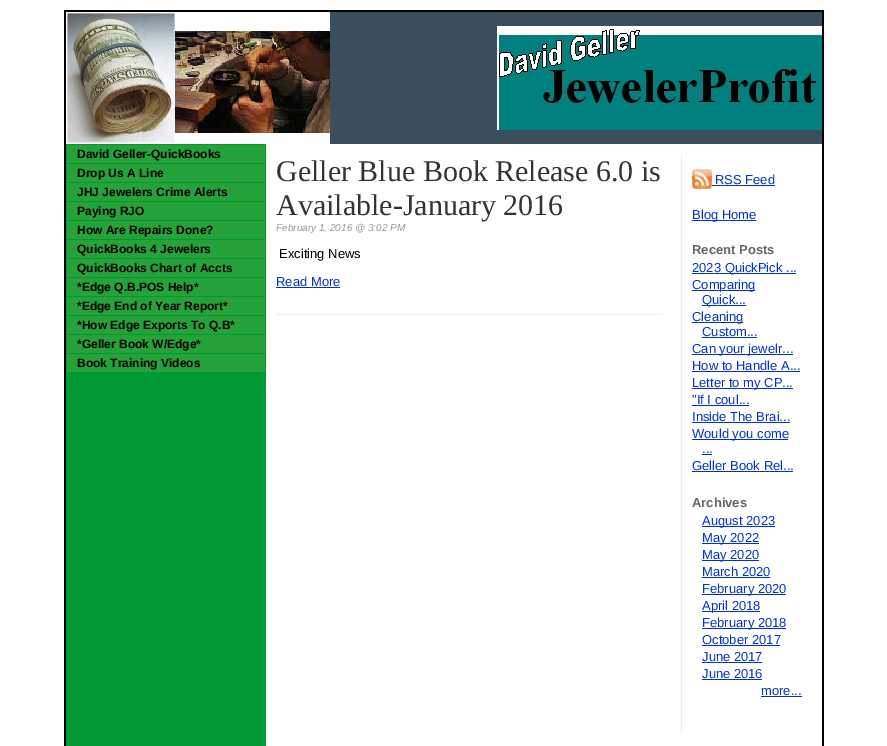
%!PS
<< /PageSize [887 746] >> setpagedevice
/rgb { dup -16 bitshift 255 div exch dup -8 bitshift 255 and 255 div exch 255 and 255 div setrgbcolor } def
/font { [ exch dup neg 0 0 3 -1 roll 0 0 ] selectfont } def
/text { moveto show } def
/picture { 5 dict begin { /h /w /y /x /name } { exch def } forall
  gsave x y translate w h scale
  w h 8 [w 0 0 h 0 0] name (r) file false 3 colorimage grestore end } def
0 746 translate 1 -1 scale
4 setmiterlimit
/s1 { /LiberationSans-Bold 12 font 16#000000 rgb } def
/s2 { /LiberationSerif-Regular 30 font 16#333333 rgb } def
/s3 { /LiberationSans-Italic 10 font 16#999999 rgb } def
/s4 { /LiberationSans-Regular 13 font 16#000000 rgb } def
/s5 { /LiberationSans-Regular 13 font 16#0033CC rgb } def
/s6 { /LiberationSans-Bold 13 font 16#666666 rgb } def
16#FFFFFF rgb
0 0 887 746 rectfill
16#000000 rgb
64 10 760 736 rectfill
16#3B4E5C rgb
330 12 492 132 rectfill
(pic1.raw) 66 12 264 132 picture
(pic2.raw) 497 26 325 104 picture
16#009933 rgb
66 144 200 602 rectfill
16#25A23A rgb
67 145 198 18 rectfill
s1
(David Geller-QuickBooks) 77 158 text
16#25A23A rgb
67 164 198 18 rectfill
s1
(Drop Us A Line) 77 177 text
16#25A23A rgb
67 183 198 18 rectfill
s1
(JHJ Jewelers Crime Alerts) 77 196 text
16#25A23A rgb
67 202 198 18 rectfill
s1
(Paying RJO) 77 215 text
16#25A23A rgb
67 221 198 18 rectfill
s1
(How Are Repairs Done?) 77 234 text
16#25A23A rgb
67 240 198 18 rectfill
s1
(QuickBooks 4 Jewelers) 77 253 text
16#25A23A rgb
67 259 198 18 rectfill
s1
(QuickBooks Chart of Accts) 77 272 text
16#25A23A rgb
67 278 198 18 rectfill
s1
(*Edge Q.B.POS Help*) 77 291 text
16#25A23A rgb
67 297 198 18 rectfill
s1
(*Edge End of Year Report*) 77 310 text
16#25A23A rgb
67 316 198 18 rectfill
s1
(*How Edge Exports To Q.B*) 77 329 text
16#25A23A rgb
67 335 198 18 rectfill
s1
(*Geller Book W/Edge*) 77 348 text
16#25A23A rgb
67 354 198 18 rectfill
s1
(Book Training Videos) 77 367 text
16#FFFFFF rgb
266 144 556 602 rectfill
s2
(Geller Blue Book Release 6.0 is) 276 181 text
(Available-January 2016) 276 215 text
s3
(February 1, 2016 @ 3:02 PM) 276 231 text
s4
(Exciting News) 279 258 text
s5
(Read More) 276 286 text
276 287 64 1 rectfill
16#EEEEEE rgb
276 314 386 1 rectfill
681 154 1 579 rectfill
(pic3.raw) 692 169 20 20 picture
s5
(RSS Feed) 715 184 text
712 185 63 1 rectfill
692 220 64 1 rectfill
(Blog Home) 692 219 text
s6
(Recent Posts) 692 254 text
16#0033CC rgb
692 273 104 1 rectfill
s5
(2023 QuickPick ...) 692 272 text
692 290 63 1 rectfill
(Comparing) 692 289 text
702 305 44 1 rectfill
(Quick...) 702 304 text
692 322 51 1 rectfill
(Cleaning) 692 321 text
(Custom...) 702 336 text
702 337 55 1 rectfill
692 354 101 1 rectfill
(Can your jewelr...) 692 353 text
(How to Handle A...) 692 370 text
692 371 108 1 rectfill
692 388 101 1 rectfill
(Letter to my CP...) 692 387 text
("If I coul...) 692 404 text
692 405 57 1 rectfill
(Inside The Brai...) 692 421 text
692 422 98 1 rectfill
692 439 96 1 rectfill
(Would you come) 692 438 text
(...) 702 453 text
702 454 10 1 rectfill
(Geller Book Rel...) 692 470 text
692 471 101 1 rectfill
s6
(Archives) 692 507 text
16#0033CC rgb
702 526 73 1 rectfill
s5
(August 2023) 702 525 text
702 543 57 1 rectfill
(May 2022) 702 542 text
702 560 57 1 rectfill
(May 2020) 702 559 text
(March 2020) 702 576 text
702 577 68 1 rectfill
702 594 84 1 rectfill
(February 2020) 702 593 text
702 611 58 1 rectfill
(April 2018) 702 610 text
702 628 84 1 rectfill
(February 2018) 702 627 text
(October 2017) 702 644 text
702 645 78 1 rectfill
(June 2017) 702 661 text
702 662 60 1 rectfill
(June 2016) 702 678 text
702 679 60 1 rectfill
(more...) 761 695 text
761 696 41 1 rectfill
showpage
